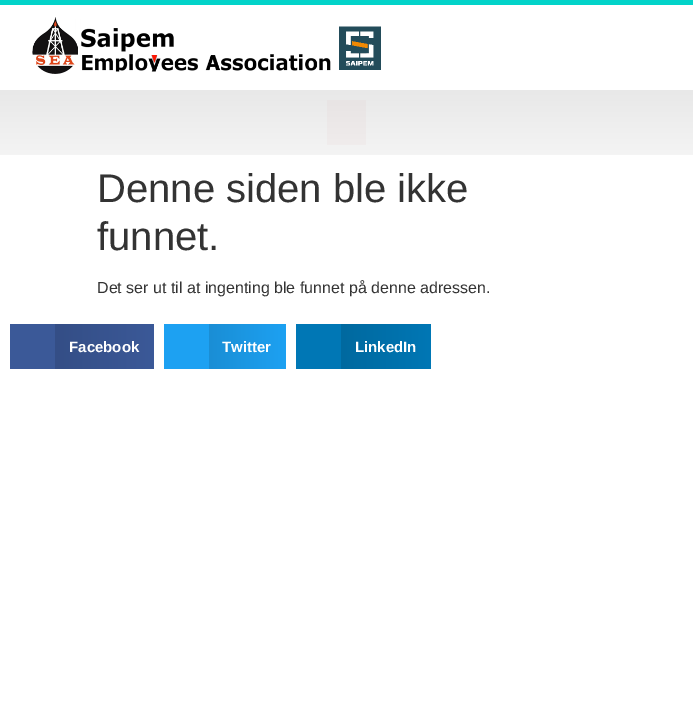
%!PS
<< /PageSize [693 714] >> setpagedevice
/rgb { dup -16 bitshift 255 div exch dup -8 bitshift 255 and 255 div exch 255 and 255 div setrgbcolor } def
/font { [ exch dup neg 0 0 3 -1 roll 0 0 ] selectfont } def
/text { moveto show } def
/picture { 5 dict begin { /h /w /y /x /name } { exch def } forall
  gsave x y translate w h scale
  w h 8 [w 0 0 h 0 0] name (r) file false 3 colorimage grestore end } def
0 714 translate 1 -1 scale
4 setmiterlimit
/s1 { /LiberationSans-Regular 40 font 16#333333 rgb } def
/s2 { /LiberationSans-Regular 16 font 16#333333 rgb } def
/s3 { /LiberationSans-Bold 15 font 16#FFFFFF rgb } def
16#FFFFFF rgb
0 0 693 714 rectfill
16#02D3C9 rgb
0 0 693 5 rectfill
(pic1.raw) 32 17 349 57 picture
gsave 0 90 moveto 693 90 lineto 693 155 lineto 0 155 lineto closepath clip newpath
<< /ShadingType 2 /ColorSpace /DeviceRGB /Coords [347 90 347 155] /Extend [true true] /Function << /FunctionType 2 /Domain [0 1] /C0 [0.91 0.91 0.91] /C1 [0.957 0.957 0.957] /N 1 >> >> shfill grestore
gsave 327 100 moveto 366 100 lineto 366 145 lineto 327 145 lineto closepath clip newpath
<< /ShadingType 2 /ColorSpace /DeviceRGB /Coords [347 90 347 155] /Extend [true true] /Function << /FunctionType 2 /Domain [0 1] /C0 [0.902 0.886 0.886] /C1 [0.949 0.933 0.933] /N 1 >> >> shfill grestore
s1
(Denne siden ble ikke) 97 202 text
(funnet.) 97 250 text
s2
(Det ser ut til at ingenting ble funnet på denne adressen.) 97 293 text
16#3B5998 rgb
10 324 45 45 rectfill
gsave 55 324 moveto 154 324 lineto 154 369 lineto 55 369 lineto closepath clip newpath
<< /ShadingType 2 /ColorSpace /DeviceRGB /Coords [55 347 154 347] /Extend [true true] /Function << /FunctionType 2 /Domain [0 1] /C0 [0.204 0.306 0.525] /C1 [0.231 0.349 0.596] /N 1 >> >> shfill grestore
s3
(Facebook) 69 352 text
16#1DA1F2 rgb
164 324 45 45 rectfill
gsave 209 324 moveto 286 324 lineto 286 369 lineto 209 369 lineto closepath clip newpath
<< /ShadingType 2 /ColorSpace /DeviceRGB /Coords [209 347 286 347] /Extend [true true] /Function << /FunctionType 2 /Domain [0 1] /C0 [0.102 0.557 0.835] /C1 [0.114 0.631 0.949] /N 1 >> >> shfill grestore
s3
(Twitter) 222 352 text
16#0077B5 rgb
296 324 45 45 rectfill
gsave 341 324 moveto 431 324 lineto 431 369 lineto 341 369 lineto closepath clip newpath
<< /ShadingType 2 /ColorSpace /DeviceRGB /Coords [341 347 431 347] /Extend [true true] /Function << /FunctionType 2 /Domain [0 1] /C0 [0 0.412 0.624] /C1 [0 0.467 0.71] /N 1 >> >> shfill grestore
s3
(LinkedIn) 355 352 text
showpage
